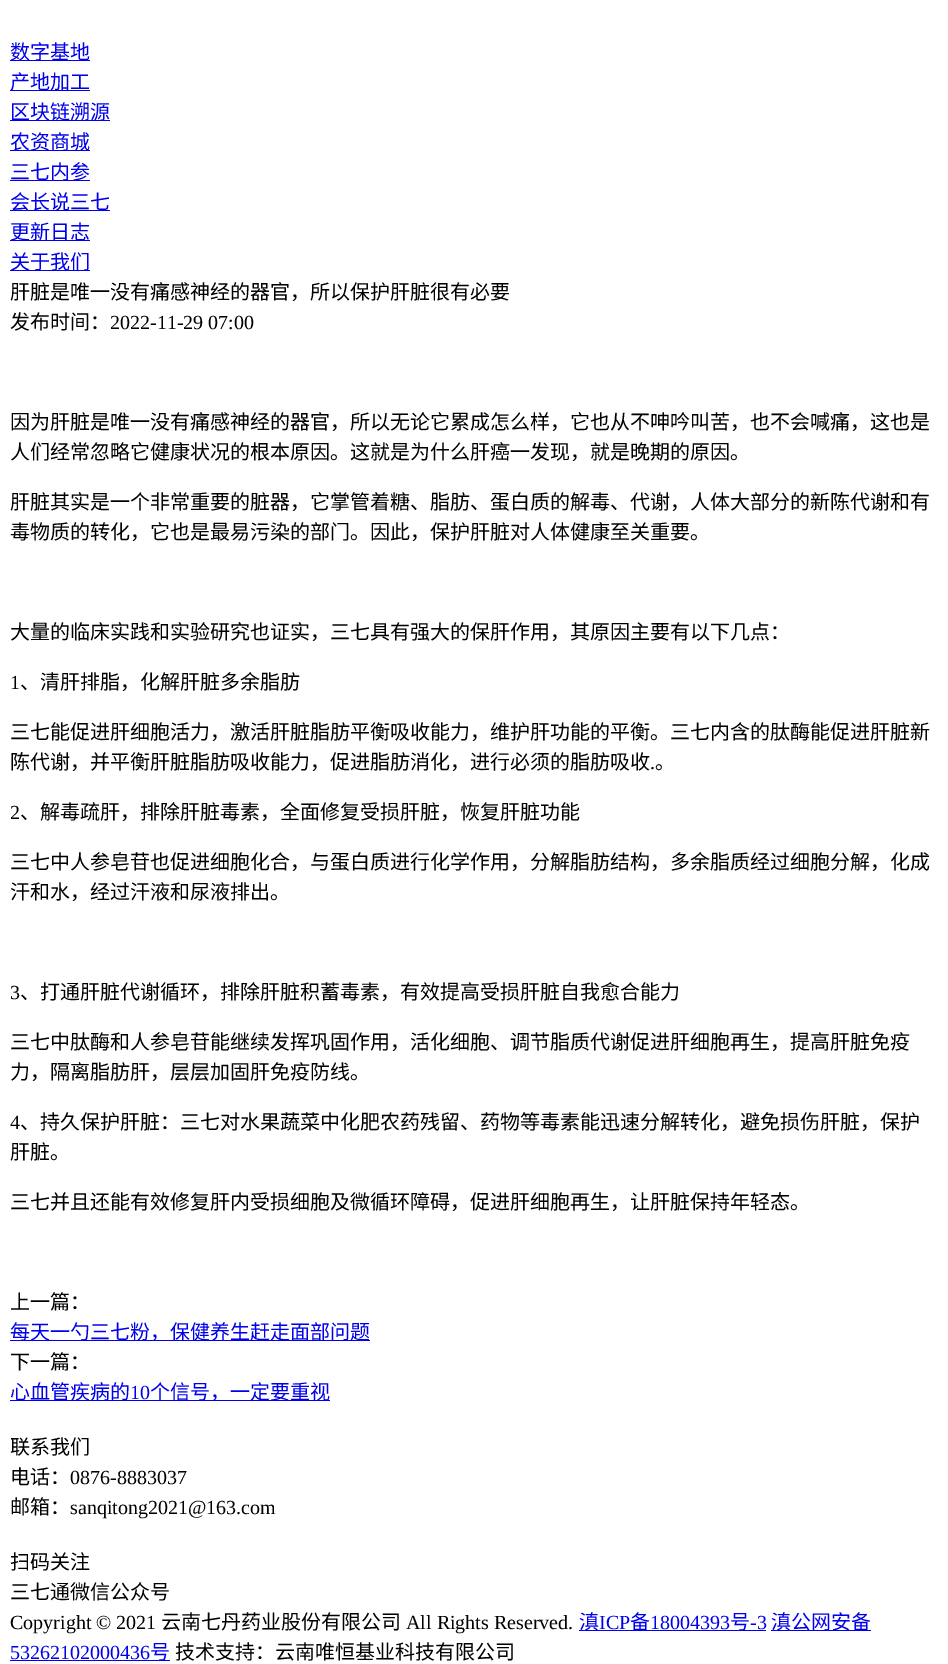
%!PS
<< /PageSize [948 1664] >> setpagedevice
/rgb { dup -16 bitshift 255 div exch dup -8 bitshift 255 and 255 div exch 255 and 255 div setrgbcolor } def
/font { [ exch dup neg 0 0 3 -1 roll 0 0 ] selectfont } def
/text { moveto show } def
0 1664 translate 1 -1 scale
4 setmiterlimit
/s1 { /NotoSansCJKSC-Regular 20 font 16#0000EE rgb } def
/s2 { /NotoSansCJKSC-Regular 20 font 16#000000 rgb } def
/s3 { /LiberationSerif-Regular 20 font 16#000000 rgb } def
/s4 { /LiberationSerif-Regular 20 font 16#0000EE rgb } def
16#FFFFFF rgb
0 0 948 1664 rectfill
16#0000EE rgb
10 60 80 1 rectfill
s1
(数字基地) 10 59 text
10 90 80 1 rectfill
(产地加工) 10 89 text
10 120 100 1 rectfill
(区块链溯源) 10 119 text
10 150 80 1 rectfill
(农资商城) 10 149 text
10 180 80 1 rectfill
(三七内参) 10 179 text
10 210 100 1 rectfill
(会长说三七) 10 209 text
10 240 80 1 rectfill
(更新日志) 10 239 text
10 270 80 1 rectfill
(关于我们) 10 269 text
s2
(肝脏是唯一没有痛感神经的器官，所以保护肝脏很有必要) 10 299 text
(发布时间：) 10 329 text
s3
(2022-11-29 07:00) 110 329 text
s2
(因为肝脏是唯一没有痛感神经的器官，所以无论它累成怎么样，它也从不呻吟叫苦，也不会喊痛，这也是) 10 429 text
(人们经常忽略它健康状况的根本原因。这就是为什么肝癌一发现，就是晚期的原因。) 10 459 text
(肝脏其实是一个非常重要的脏器，它掌管着糖、脂肪、蛋白质的解毒、代谢，人体大部分的新陈代谢和有) 10 509 text
(毒物质的转化，它也是最易污染的部门。因此，保护肝脏对人体健康至关重要。) 10 539 text
(大量的临床实践和实验研究也证实，三七具有强大的保肝作用，其原因主要有以下几点：) 10 639 text
s3
(1) 10 689 text
s2
(、清肝排脂，化解肝脏多余脂肪) 20 689 text
(三七能促进肝细胞活力，激活肝脏脂肪平衡吸收能力，维护肝功能的平衡。三七内含的肽酶能促进肝脏新) 10 739 text
(陈代谢，并平衡肝脏脂肪吸收能力，促进脂肪消化，进行必须的脂肪吸收) 10 769 text
s3
(.) 650 769 text
s2
(。) 655 769 text
s3
(2) 10 819 text
s2
(、解毒疏肝，排除肝脏毒素，全面修复受损肝脏，恢复肝脏功能) 20 819 text
(三七中人参皂苷也促进细胞化合，与蛋白质进行化学作用，分解脂肪结构，多余脂质经过细胞分解，化成) 10 869 text
(汗和水，经过汗液和尿液排出。) 10 899 text
s3
(3) 10 999 text
s2
(、打通肝脏代谢循环，排除肝脏积蓄毒素，有效提高受损肝脏自我愈合能力) 20 999 text
(三七中肽酶和人参皂苷能继续发挥巩固作用，活化细胞、调节脂质代谢促进肝细胞再生，提高肝脏免疫) 10 1049 text
(力，隔离脂肪肝，层层加固肝免疫防线。) 10 1079 text
s3
(4) 10 1129 text
s2
(、持久保护肝脏：三七对水果蔬菜中化肥农药残留、药物等毒素能迅速分解转化，避免损伤肝脏，保护) 20 1129 text
(肝脏。) 10 1159 text
(三七并且还能有效修复肝内受损细胞及微循环障碍，促进肝细胞再生，让肝脏保持年轻态。) 10 1209 text
(上一篇：) 10 1309 text
16#0000EE rgb
10 1340 360 1 rectfill
(每天一勺三七粉，保健养生赶走面部问题) 10 1339 text
s2
(下一篇：) 10 1369 text
16#0000EE rgb
10 1400 320 1 rectfill
(心血管疾病的) 10 1399 text
s4
(10) 130 1399 text
s1
(个信号，一定要重视) 150 1399 text
s2
(联系我们) 10 1454 text
(电话：) 10 1484 text
s3
(0876-8883037) 70 1484 text
s2
(邮箱：) 10 1514 text
s3
(sanqitong2021@163.com) 70 1514 text
s2
(扫码关注) 10 1569 text
(三七通微信公众号) 10 1599 text
s3
(Copyright © 2021) 10 1629 text
s2
(云南七丹药业股份有限公司) 161 1629 text
s3
(All Rights Reserved.) 406 1629 text
16#0000EE rgb
579 1630 187 1 rectfill
s1
(滇) 579 1629 text
s4
(ICP) 599 1629 text
s1
(备) 630 1629 text
s4
(18004393) 650 1629 text
s1
(号) 730 1629 text
s4
(-3) 750 1629 text
771 1630 100 1 rectfill
s1
(滇公网安备) 771 1629 text
s4
(53262102000436) 10 1659 text
10 1660 160 1 rectfill
s1
(号) 150 1659 text
s2
(技术支持：云南唯恒基业科技有限公司) 175 1659 text
showpage
